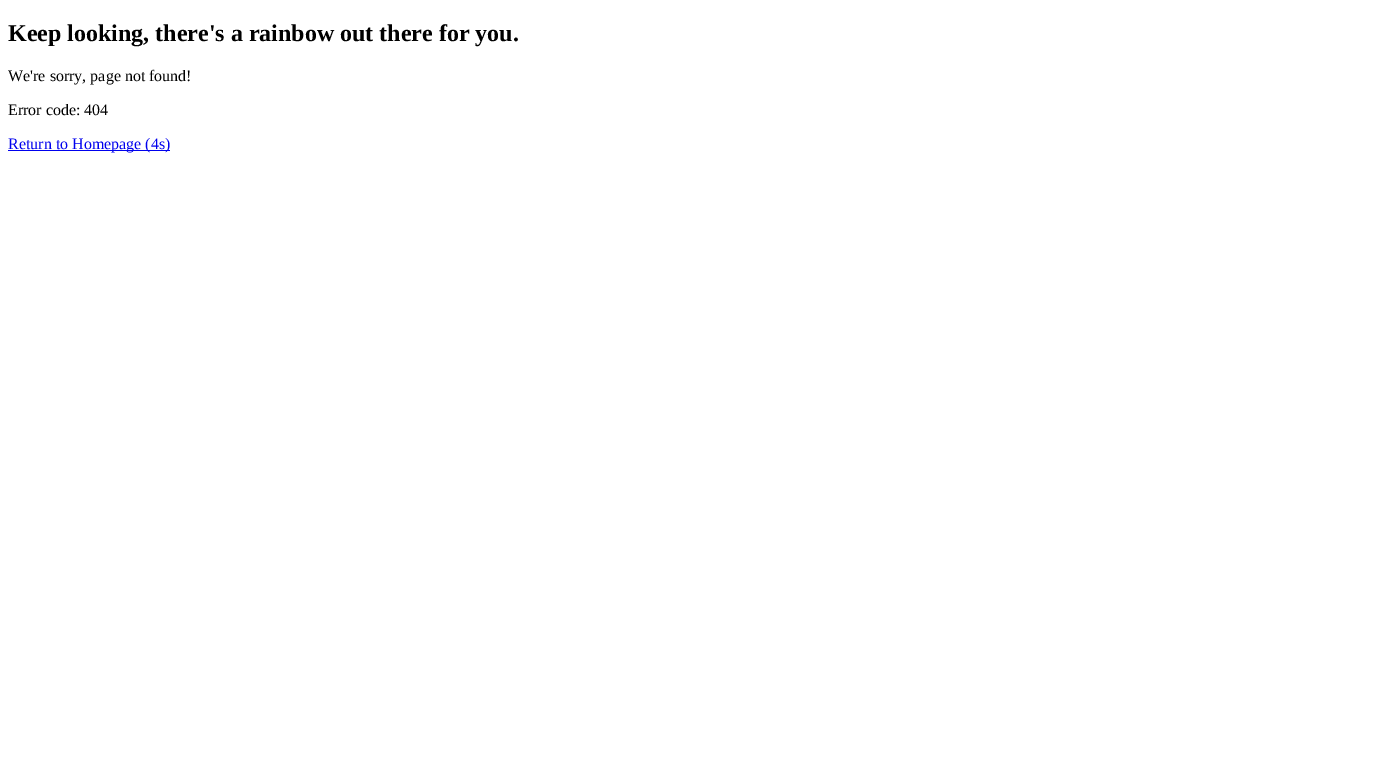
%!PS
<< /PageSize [1380 757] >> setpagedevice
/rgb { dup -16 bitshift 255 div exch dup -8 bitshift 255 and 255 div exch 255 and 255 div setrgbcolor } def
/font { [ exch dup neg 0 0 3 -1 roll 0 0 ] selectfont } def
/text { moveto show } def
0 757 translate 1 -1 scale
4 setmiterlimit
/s1 { /LiberationSerif-Bold 24 font 16#000000 rgb } def
/s2 { /LiberationSerif-Regular 16 font 16#000000 rgb } def
/s3 { /LiberationSerif-Regular 16 font 16#0000EE rgb } def
16#FFFFFF rgb
0 0 1380 757 rectfill
s1
(Keep looking, there's a rainbow out there for you.) 8 41 text
s2
(We're sorry, page not found!) 8 81 text
(Error code: 404) 8 115 text
16#0000EE rgb
8 150 162 1 rectfill
(Return to Homepage \(4s\)) 8 149 text
showpage
